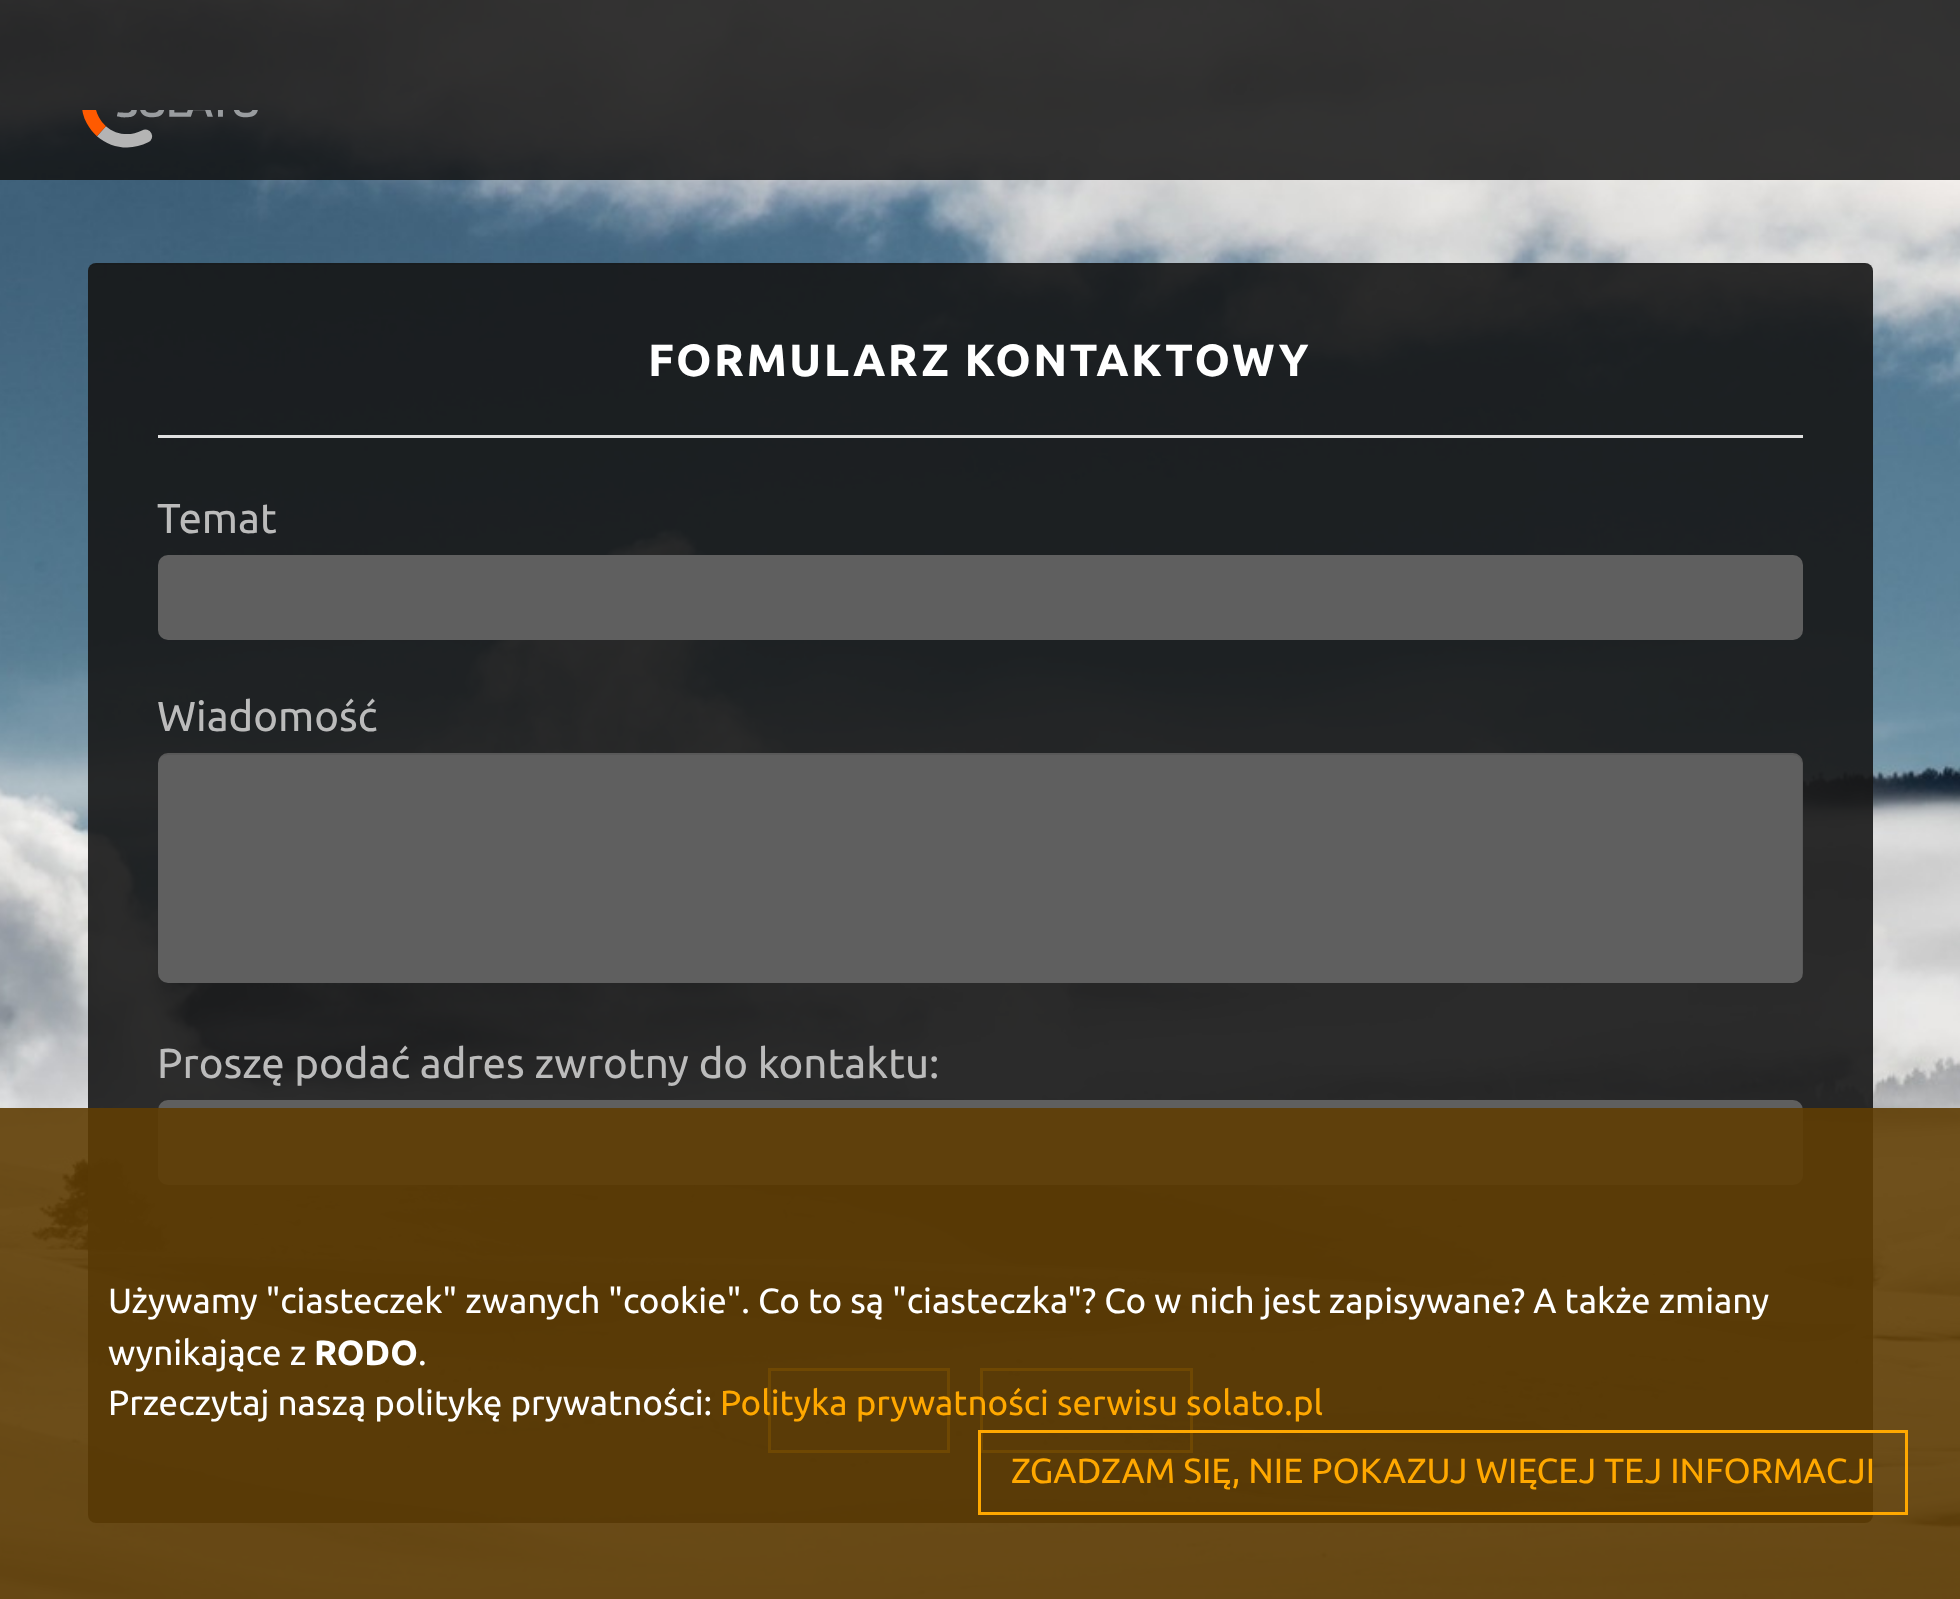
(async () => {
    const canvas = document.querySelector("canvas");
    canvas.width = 1960;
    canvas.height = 1599;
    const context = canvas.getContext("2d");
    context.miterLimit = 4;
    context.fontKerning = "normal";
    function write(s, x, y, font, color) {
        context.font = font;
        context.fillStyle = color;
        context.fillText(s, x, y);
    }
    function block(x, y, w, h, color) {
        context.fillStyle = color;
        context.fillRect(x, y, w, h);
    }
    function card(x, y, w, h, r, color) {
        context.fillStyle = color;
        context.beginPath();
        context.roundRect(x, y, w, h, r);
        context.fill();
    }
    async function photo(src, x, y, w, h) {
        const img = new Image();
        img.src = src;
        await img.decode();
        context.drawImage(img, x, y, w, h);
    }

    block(0, 0, 1960, 1599, "rgb(255, 255, 255)");
    await photo("media/2.png", 0, 0, 1960, 1599);
    block(0, 0, 1960, 180, "rgba(20, 20, 20, 0.86)");
    await photo("media/1.png", 82, 110, 176, 38);
    card(88, 263, 1785, 1260, 8, "rgba(22, 22, 22, 0.9)");
    context.fillStyle = "rgba(0, 0, 0, 0.05)";
    context.beginPath();
    context.moveTo(95, 265);
    context.lineTo(1865, 265);
    context.bezierCurveTo(1869, 265, 1872, 268, 1872, 272);
    context.lineTo(1872, 1519);
    context.bezierCurveTo(1873, 1518, 1873, 1516, 1873, 1515);
    context.lineTo(1873, 271);
    context.bezierCurveTo(1873, 267, 1869, 263, 1865, 263);
    context.lineTo(96, 263);
    context.bezierCurveTo(92, 263, 88, 267, 88, 271);
    context.lineTo(88, 272);
    context.bezierCurveTo(88, 268, 91, 265, 95, 265);
    context.closePath();
    context.fill();
    context.letterSpacing = "2.5px";
    write("FORMULARZ KONTAKTOWY", 648, 376, "bold 45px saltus", "rgb(255, 255, 255)");
    block(158, 435, 1645, 3, "rgb(224, 224, 224)");
    context.letterSpacing = "0px";
    write("Temat", 157, 533, "42px saltus", "rgb(187, 187, 187)");
    card(158, 555, 1645, 85, 10, "rgb(95, 95, 95)");
    write("Wiadomość", 157, 731, "42px saltus", "rgb(187, 187, 187)");
    card(158, 753, 1645, 230, 10, "rgb(95, 95, 95)");
    context.fillStyle = "rgba(0, 0, 0, 0.07)";
    context.beginPath();
    context.moveTo(168, 755);
    context.lineTo(1792, 755);
    context.bezierCurveTo(1798, 755, 1802, 759, 1802, 765);
    context.lineTo(1802, 975);
    context.lineTo(1802, 978);
    context.bezierCurveTo(1802, 977, 1803, 975, 1803, 973);
    context.lineTo(1803, 763);
    context.bezierCurveTo(1803, 757, 1799, 753, 1793, 753);
    context.lineTo(168, 753);
    context.bezierCurveTo(162, 753, 158, 757, 158, 763);
    context.lineTo(158, 765);
    context.bezierCurveTo(158, 759, 162, 755, 168, 755);
    context.closePath();
    context.fill();
    write("Proszę podać adres zwrotny do kontaktu:", 157, 1078, "42px saltus", "rgb(187, 187, 187)");
    card(158, 1100, 1645, 85, 10, "rgb(95, 95, 95)");
    context.strokeStyle = "rgb(255, 168, 0)";
    context.lineWidth = 3;
    context.strokeRect(769.5, 1369.5, 179, 82);
    context.strokeRect(981.5, 1369.5, 210, 82);
    block(0, 1108, 1960, 491, "rgba(95, 61, 3, 0.9)");
    write("Używamy \"ciasteczek\" zwanych \"cookie\". Co to są \"ciasteczka\"? Co w nich jest zapisywane? A także zmiany", 108, 1313, "35px saltus", "rgb(255, 255, 255)");
    write("wynikające z", 108, 1365, "35px saltus", "rgb(255, 255, 255)");
    write("RODO", 314, 1365, "bold 35px saltus", "rgb(255, 255, 255)");
    write(".", 418, 1365, "35px saltus", "rgb(255, 255, 255)");
    write("Przeczytaj naszą politykę prywatności:", 108, 1415, "35px saltus", "rgb(255, 255, 255)");
    write("Polityka prywatności serwisu solato.pl", 720, 1415, "35px saltus", "rgb(255, 168, 0)");
    context.strokeRect(979.5, 1431.5, 927, 82);
    write("ZGADZAM SIĘ, NIE POKAZUJ WIĘCEJ TEJ INFORMACJI", 1011, 1483, "35px saltus", "rgb(255, 168, 0)");
})();
